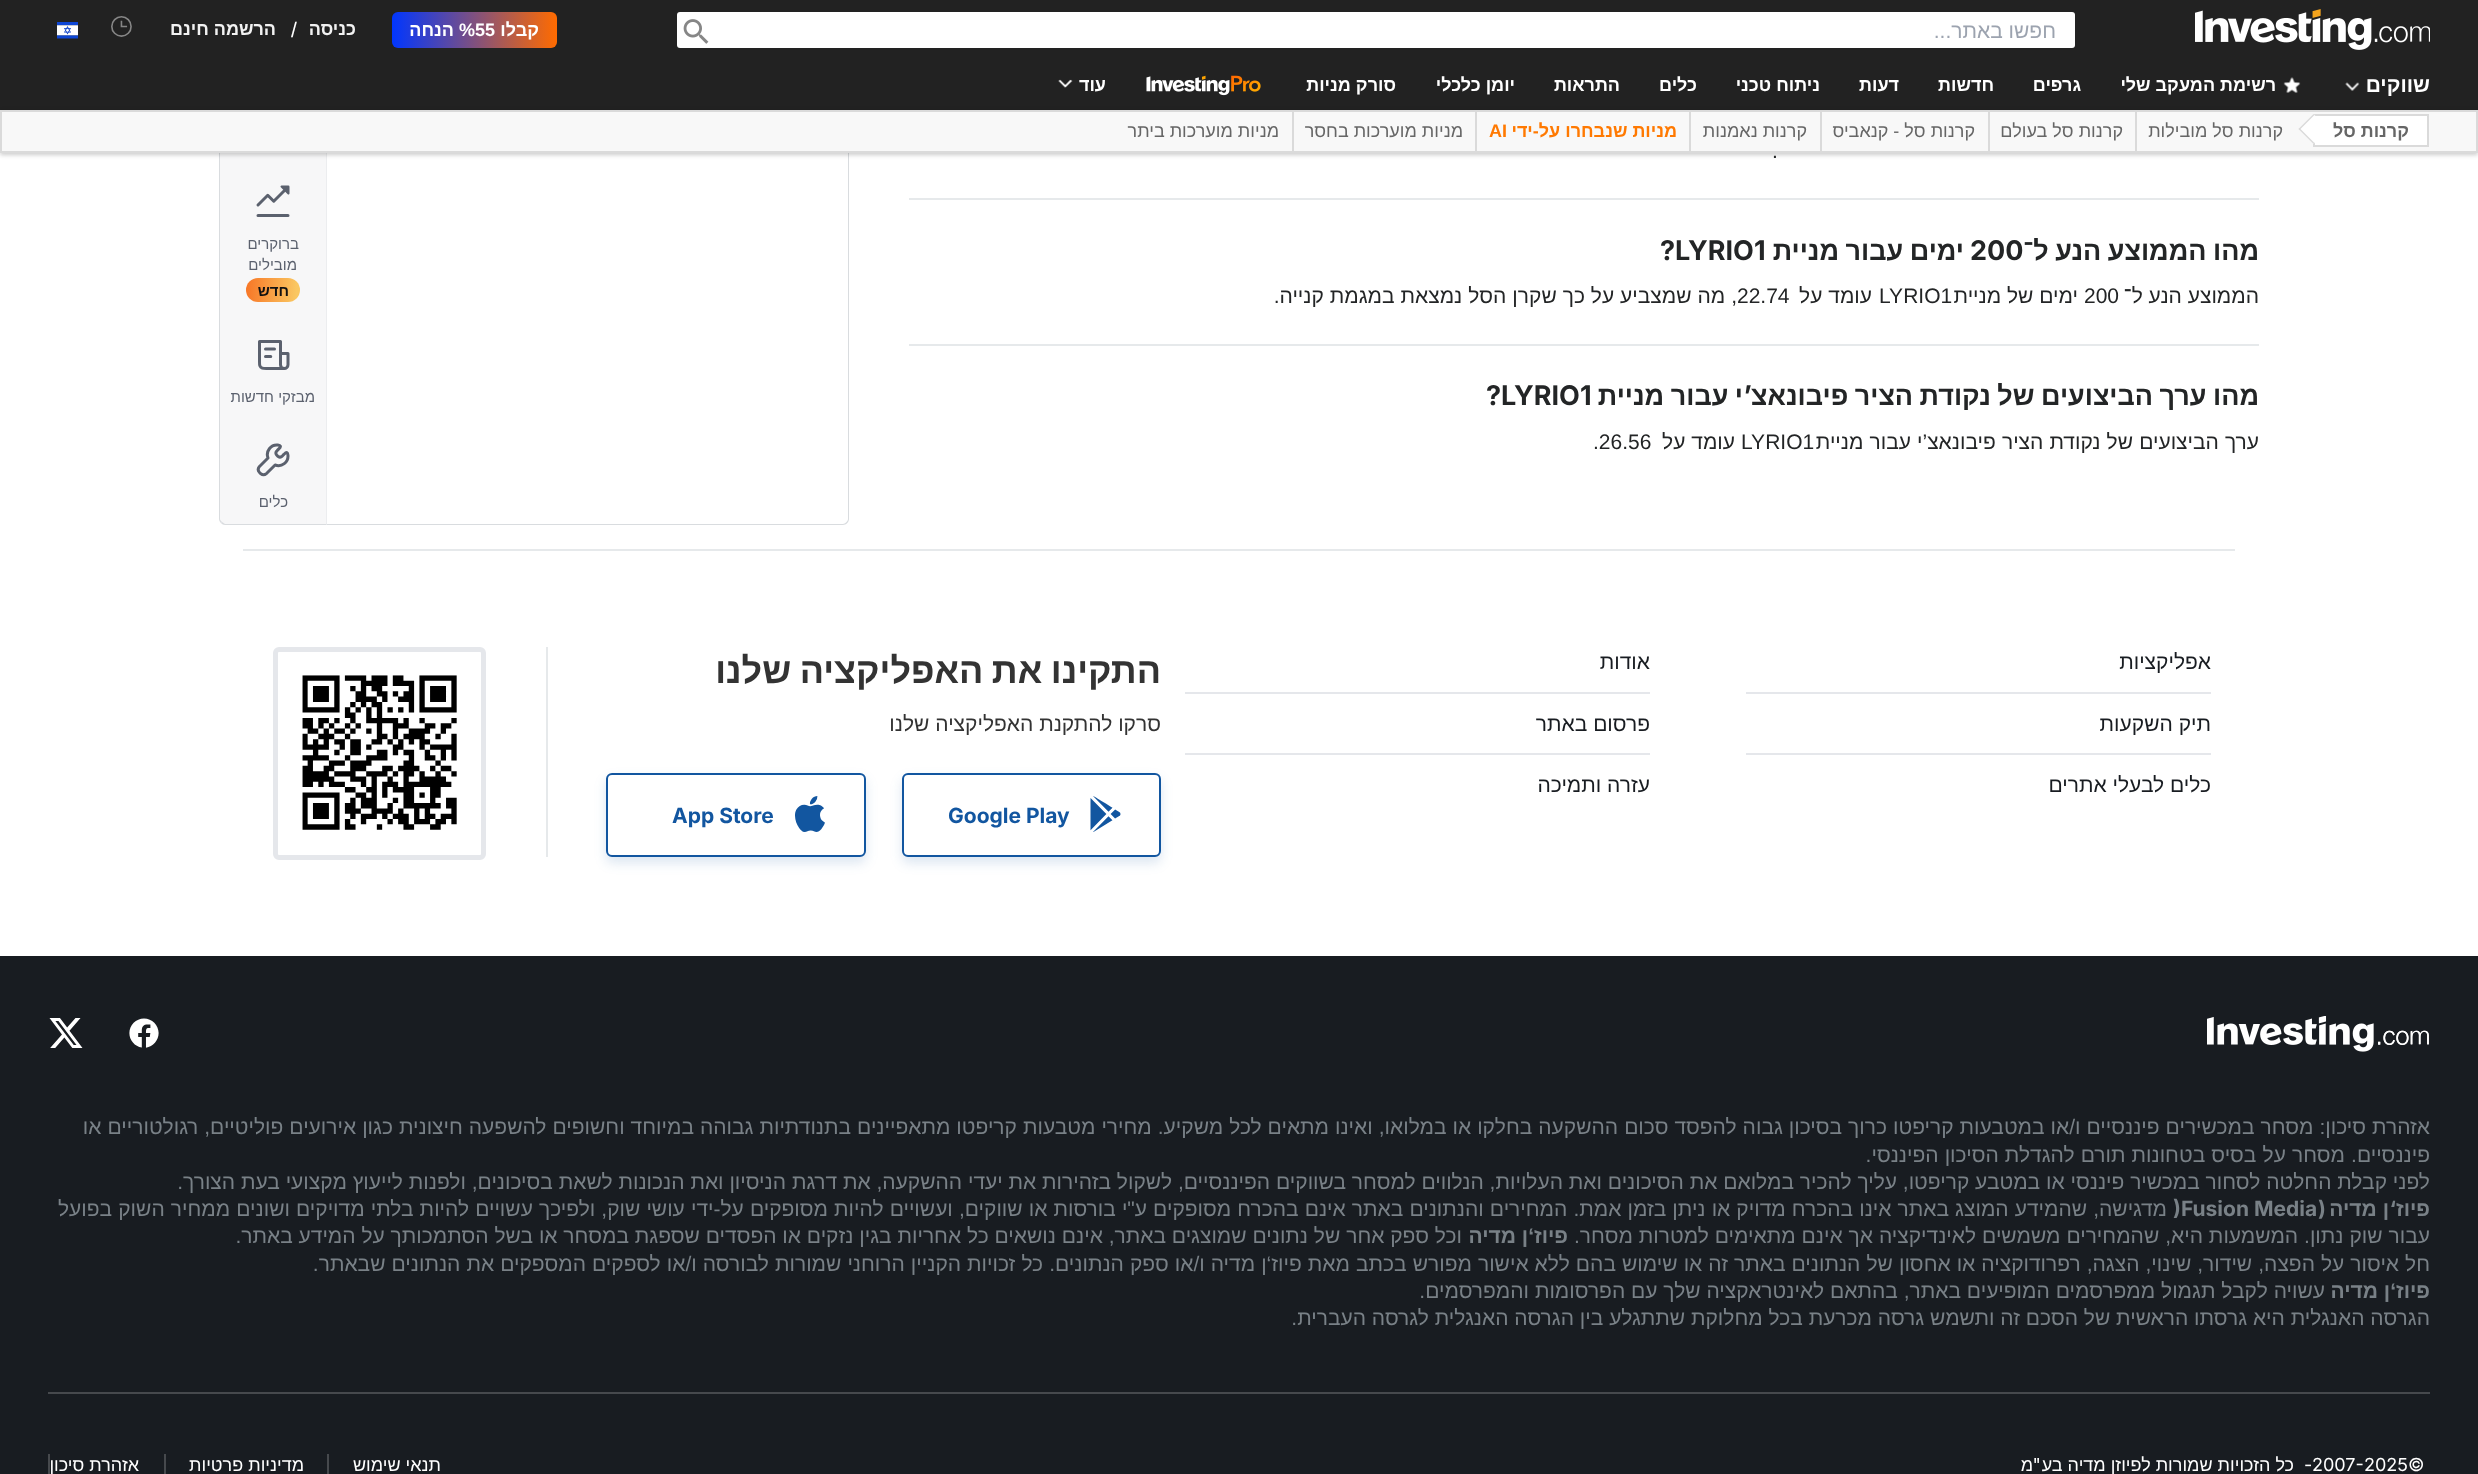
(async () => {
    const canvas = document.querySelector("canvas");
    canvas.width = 2478;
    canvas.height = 1474;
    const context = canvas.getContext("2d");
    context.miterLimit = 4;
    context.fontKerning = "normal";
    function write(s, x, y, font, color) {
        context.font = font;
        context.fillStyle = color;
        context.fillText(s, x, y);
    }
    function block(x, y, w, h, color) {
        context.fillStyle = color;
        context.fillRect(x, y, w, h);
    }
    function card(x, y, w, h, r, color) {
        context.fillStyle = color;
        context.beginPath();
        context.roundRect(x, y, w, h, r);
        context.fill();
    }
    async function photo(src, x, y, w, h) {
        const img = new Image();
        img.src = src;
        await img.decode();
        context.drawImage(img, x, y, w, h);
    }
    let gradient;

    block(0, 0, 2478, 1474, "rgb(255, 255, 255)");
    context.fillStyle = "rgb(217, 220, 223)";
    context.beginPath();
    context.moveTo(327, -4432);
    context.lineTo(843, -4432);
    context.bezierCurveTo(846, -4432, 849, -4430, 849, -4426);
    context.lineTo(849, 519);
    context.bezierCurveTo(849, 522, 846, 525, 843, 525);
    context.lineTo(327, 525);
    context.closePath();
    context.moveTo(327, -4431);
    context.lineTo(843, -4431);
    context.bezierCurveTo(845, -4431, 848, -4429, 848, -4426);
    context.lineTo(848, 519);
    context.bezierCurveTo(848, 521, 845, 524, 843, 524);
    context.lineTo(327, 524);
    context.closePath();
    context.fill("evenodd");
    context.fillStyle = "rgb(247, 247, 248)";
    context.beginPath();
    context.moveTo(225, -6);
    context.lineTo(327, -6);
    context.lineTo(327, 525);
    context.lineTo(225, 525);
    context.bezierCurveTo(221.5, 525, 219, 522.5, 219, 519);
    context.lineTo(219, 0);
    context.bezierCurveTo(219, -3.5, 221.5, -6, 225, -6);
    context.closePath();
    context.fill();
    context.fillStyle = "rgb(236, 237, 239)";
    context.beginPath();
    context.moveTo(327, 525);
    context.lineTo(327, -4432);
    context.lineTo(326, -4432);
    context.lineTo(326, -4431);
    context.lineTo(326, 524);
    context.closePath();
    context.fill();
    context.fillStyle = "rgb(217, 220, 223)";
    context.beginPath();
    context.moveTo(327, 525);
    context.lineTo(326, 524);
    context.lineTo(225, 524);
    context.lineTo(222, 522);
    context.lineTo(221, 523);
    context.bezierCurveTo(222, 524, 224, 525, 225, 525);
    context.closePath();
    context.fill();
    context.beginPath();
    context.moveTo(219, -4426);
    context.lineTo(219, 519);
    context.bezierCurveTo(219, 520, 220, 522, 221, 523);
    context.lineTo(222, 522);
    context.bezierCurveTo(221, 521, 220, 520, 220, 519);
    context.lineTo(220, -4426);
    context.bezierCurveTo(220, -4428, 221, -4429, 222, -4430);
    context.lineTo(221, -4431);
    context.bezierCurveTo(220, -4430, 219, -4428, 219, -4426);
    context.closePath();
    context.fill();
    block(0, 0, 2478, 110, "rgb(34, 34, 34)");
    await photo("media/1.png", 2195, 9, 235, 41);
    card(677, 12, 1398, 36, 3, "rgb(255, 255, 255)");
    context.direction = "rtl";
    write("חפשו באתר...", 2056, 38, "21px Liberation Sans", "rgb(156, 163, 175)");
    await photo("media/2.png", 683, 19, 26, 25);
    gradient = context.createLinearGradient(557, 30, 392, 30);
    gradient.addColorStop(0, "rgb(255, 107, 0)");
    gradient.addColorStop(1, "rgb(1, 54, 254)");
    context.fillStyle = gradient;
    context.beginPath();
    context.roundRect(392, 12, 165, 36, 6);
    context.fill();
    write("קבלו", 539, 36, "bold 18px Liberation Sans", "rgb(255, 255, 255)");
    context.direction = "ltr";
    write("%55", 459, 36, "bold 18px Liberation Sans", "rgb(255, 255, 255)");
    context.direction = "rtl";
    write("הנחה", 454, 36, "bold 18px Liberation Sans", "rgb(255, 255, 255)");
    write("כניסה", 356, 35, "bold 18px Liberation Sans", "rgb(242, 242, 242)");
    context.direction = "ltr";
    write("/", 291, 37, "21px Liberation Sans", "rgb(255, 255, 255)");
    context.direction = "rtl";
    write("הרשמה חינם", 276, 35, "bold 18px Liberation Sans", "rgb(242, 242, 242)");
    await photo("media/3.png", 111, 16, 21, 21);
    await photo("media/4.png", 57, 22, 21, 17);
    write("שווקים", 2430, 92, "bold 21px Liberation Sans", "rgb(255, 255, 255)");
    await photo("media/5.png", 2345, 82, 15, 9);
    await photo("media/6.png", 2283, 77, 18, 16);
    write("רשימת המעקב שלי", 2276, 91, "bold 18px Liberation Sans", "rgb(255, 255, 255)");
    write("גרפים", 2081, 91, "bold 18px Liberation Sans", "rgb(255, 255, 255)");
    write("חדשות", 1994, 91, "bold 18px Liberation Sans", "rgb(255, 255, 255)");
    write("דעות", 1899, 91, "bold 18px Liberation Sans", "rgb(255, 255, 255)");
    write("ניתוח טכני", 1820, 91, "bold 18px Liberation Sans", "rgb(255, 255, 255)");
    write("כלים", 1697, 91, "bold 18px Liberation Sans", "rgb(255, 255, 255)");
    write("התראות", 1620, 91, "bold 18px Liberation Sans", "rgb(255, 255, 255)");
    write("יומן כלכלי", 1515, 91, "bold 18px Liberation Sans", "rgb(255, 255, 255)");
    write("סורק מניות", 1396, 91, "bold 18px Liberation Sans", "rgb(255, 255, 255)");
    await photo("media/7.png", 1146, 75, 115, 21);
    write("עוד", 1106, 91, "bold 18px Liberation Sans", "rgb(255, 255, 255)");
    await photo("media/8.png", 1058, 79, 15, 9);
    context.fillStyle = "rgba(0, 0, 0, 0.2)";
    context.filter = "blur(2px)";
    context.beginPath();
    context.rect(0, 111, 2478, 44);
    context.fill();
    context.filter = "none";
    context.fillStyle = "rgb(248, 248, 248)";
    context.beginPath();
    context.rect(1, 111, 2476, 41);
    context.fill();
    context.strokeStyle = "rgb(218, 218, 218)";
    context.lineWidth = 2;
    context.stroke();
    context.fillStyle = "rgb(255, 255, 255)";
    context.beginPath();
    context.rect(2314, 115, 114, 31);
    context.fill();
    context.stroke();
    write("קרנות סל", 2409, 137, "bold 18px Liberation Sans", "rgb(102, 102, 102)");
    context.fillStyle = "rgb(255, 255, 255)";
    context.beginPath();
    context.moveTo(2298.5, 129);
    context.lineTo(2313.5, 114);
    context.lineTo(2328, 129);
    context.lineTo(2313.5, 144);
    context.closePath();
    context.fill();
    context.fillStyle = "rgb(218, 218, 218)";
    context.beginPath();
    context.moveTo(2298.5, 129);
    context.lineTo(2313.5, 114);
    context.lineTo(2314.5, 115);
    context.lineTo(2299.5, 130);
    context.closePath();
    context.fill();
    context.beginPath();
    context.moveTo(2298.5, 129);
    context.lineTo(2299.5, 128);
    context.lineTo(2314.5, 143);
    context.lineTo(2313.5, 144);
    context.closePath();
    context.fill();
    block(2135, 111, 2, 41, "rgb(218, 218, 218)");
    write("קרנות סל מובילות", 2283, 137, "18px Liberation Sans", "rgb(102, 102, 102)");
    block(1988, 111, 2, 41, "rgb(218, 218, 218)");
    write("קרנות סל בעולם", 2123, 137, "18px Liberation Sans", "rgb(102, 102, 102)");
    block(1820, 111, 2, 41, "rgb(218, 218, 218)");
    write("קרנות סל - קנאביס", 1975, 137, "18px Liberation Sans", "rgb(102, 102, 102)");
    block(1689, 111, 2, 41, "rgb(218, 218, 218)");
    write("קרנות נאמנות", 1807, 137, "18px Liberation Sans", "rgb(102, 102, 102)");
    block(1475, 111, 2, 41, "rgb(218, 218, 218)");
    write("מניות שנבחרו על-ידי", 1677, 137, "bold 18px Liberation Sans", "rgb(255, 121, 1)");
    context.direction = "ltr";
    write("AI", 1489, 137, "bold 18px Liberation Sans", "rgb(255, 121, 1)");
    block(1292, 111, 2, 41, "rgb(218, 218, 218)");
    context.direction = "rtl";
    write("מניות מוערכות בחסר", 1463, 137, "18px Liberation Sans", "rgb(102, 102, 102)");
    write("מניות מוערכות ביתר", 1279, 137, "18px Liberation Sans", "rgb(102, 102, 102)");
    context.direction = "ltr";
    write(".", 1772, 158, "21px Liberation Sans", "rgb(35, 37, 38)");
    block(909, 198, 1350, 2, "rgb(230, 233, 235)");
    context.wordSpacing = "-1px";
    context.direction = "rtl";
    write("מהו הממוצע הנע ל־", 2259, 260, "bold 27px Liberation Sans", "rgb(35, 37, 38)");
    context.wordSpacing = "0px";
    context.direction = "ltr";
    write("200", 1970, 260, "bold 27px Inter", "rgb(35, 37, 38)");
    context.wordSpacing = "-1px";
    context.direction = "rtl";
    write("ימים עבור מניית", 1964, 260, "bold 27px Liberation Sans", "rgb(35, 37, 38)");
    context.wordSpacing = "0px";
    context.direction = "ltr";
    write("?LYRIO1", 1660, 260, "bold 27px Inter", "rgb(35, 37, 38)");
    context.direction = "rtl";
    write("הממוצע הנע ל־", 2259, 303, "21px Liberation Sans", "rgb(35, 37, 38)");
    context.direction = "ltr";
    write("200", 2084, 303, "21px Liberation Sans", "rgb(35, 37, 38)");
    context.direction = "rtl";
    write("ימים של מניית", 2078, 303, "21px Liberation Sans", "rgb(35, 37, 38)");
    context.direction = "ltr";
    write("LYRIO1", 1879, 303, "21px Liberation Sans", "rgb(35, 37, 38)");
    context.direction = "rtl";
    write("עומד על", 1872, 303, "21px Liberation Sans", "rgb(35, 37, 38)");
    context.direction = "ltr";
    write("22.74", 1737, 303, "21px Liberation Sans", "rgb(35, 37, 38)");
    context.wordSpacing = "0.1px";
    context.direction = "rtl";
    write(", מה שמצביע על כך שקרן הסל נמצאת במגמת קנייה.", 1737, 303, "21px Liberation Sans", "rgb(35, 37, 38)");
    block(909, 344, 1350, 2, "rgb(230, 233, 235)");
    context.wordSpacing = "-1px";
    write("מהו ערך הביצועים של נקודת הציר פיבונאצ", 2259, 405, "bold 27px Liberation Sans", "rgb(35, 37, 38)");
    context.wordSpacing = "0px";
    write("’", 1752, 405, "bold 27px Inter", "rgb(35, 37, 38)");
    context.wordSpacing = "-1px";
    write("י עבור מניית", 1743, 405, "bold 27px Liberation Sans", "rgb(35, 37, 38)");
    context.wordSpacing = "0px";
    context.direction = "ltr";
    write("?LYRIO1", 1486, 405, "bold 27px Inter", "rgb(35, 37, 38)");
    context.wordSpacing = "0.25px";
    context.direction = "rtl";
    write("ערך הביצועים של נקודת הציר פיבונאצ’י עבור מניית", 2259, 449, "21px Liberation Sans", "rgb(35, 37, 38)");
    context.wordSpacing = "0px";
    context.direction = "ltr";
    write("LYRIO1", 1741, 449, "21px Liberation Sans", "rgb(35, 37, 38)");
    context.direction = "rtl";
    write("עומד על", 1735, 449, "21px Liberation Sans", "rgb(35, 37, 38)");
    context.direction = "ltr";
    write(".26.56", 1593, 449, "21px Liberation Sans", "rgb(35, 37, 38)");
    await photo("media/9.png", 256, 185, 34, 32);
    context.direction = "rtl";
    write("ברוקרים", 299, 249, "15px Liberation Sans", "rgb(91, 97, 110)");
    write("מובילים", 297, 270, "15px Liberation Sans", "rgb(91, 97, 110)");
    gradient = context.createLinearGradient(301, 291, 237, 287);
    gradient.addColorStop(0.07, "rgb(250, 199, 97)");
    gradient.addColorStop(1, "rgb(247, 104, 28)");
    context.fillStyle = gradient;
    context.beginPath();
    context.roundRect(246, 278, 54, 24, 12);
    context.fill();
    write("חדש", 289, 296, "bold 15px Liberation Sans", "rgb(17, 17, 17)");
    await photo("media/10.png", 258, 340, 32, 30);
    write("מבזקי חדשות", 315, 402, "15px Liberation Sans", "rgb(91, 97, 110)");
    await photo("media/11.png", 256, 443, 34, 34);
    write("כלים", 288, 507, "15px Liberation Sans", "rgb(91, 97, 110)");
    block(243, 549, 1992, 2, "rgb(230, 233, 235)");
    block(1746, 692, 465, 2, "rgb(229, 231, 235)");
    write("אפליקציות", 2211, 669, "21px Liberation Sans", "rgb(24, 28, 33)");
    block(1746, 753, 465, 2, "rgb(229, 231, 235)");
    write("תיק השקעות", 2211, 731, "21px Liberation Sans", "rgb(24, 28, 33)");
    write("כלים לבעלי אתרים", 2211, 792, "21px Liberation Sans", "rgb(24, 28, 33)");
    block(1185, 692, 465, 2, "rgb(229, 231, 235)");
    write("אודות", 1650, 669, "21px Liberation Sans", "rgb(24, 28, 33)");
    block(1185, 753, 465, 2, "rgb(229, 231, 235)");
    write("פרסום באתר", 1650, 731, "21px Liberation Sans", "rgb(24, 28, 33)");
    write("עזרה ותמיכה", 1650, 792, "21px Liberation Sans", "rgb(24, 28, 33)");
    block(546, 647, 2, 210, "rgb(230, 233, 235)");
    context.wordSpacing = "-1.5px";
    write("התקינו את האפליקציה שלנו", 1161, 683, "bold 36px Liberation Sans", "rgb(51, 51, 51)");
    context.wordSpacing = "0px";
    write("סרקו להתקנת האפליקציה שלנו", 1161, 731, "21px Liberation Sans", "rgb(51, 51, 51)");
    context.fillStyle = "rgba(18, 86, 160, 0.15)";
    context.filter = "blur(6px)";
    context.beginPath();
    context.roundRect(902, 779, 259, 84, 6);
    context.fill();
    context.filter = "none";
    context.fillStyle = "rgb(255, 255, 255)";
    context.beginPath();
    context.roundRect(903, 774, 257, 82, 5);
    context.fill();
    context.strokeStyle = "rgb(18, 86, 160)";
    context.stroke();
    await photo("media/12.png", 1090, 796, 31, 36);
    context.direction = "ltr";
    write("Google Play", 948, 823, "bold 21px Inter", "rgb(18, 86, 160)");
    context.fillStyle = "rgba(18, 86, 160, 0.15)";
    context.filter = "blur(6px)";
    context.beginPath();
    context.roundRect(606, 779, 260, 84, 6);
    context.fill();
    context.filter = "none";
    context.fillStyle = "rgb(255, 255, 255)";
    context.beginPath();
    context.roundRect(607, 774, 258, 82, 5);
    context.fill();
    context.stroke();
    await photo("media/13.png", 795, 796, 30, 36);
    write("App Store", 672, 823, "bold 21px Inter", "rgb(18, 86, 160)");
    context.beginPath();
    context.roundRect(275.5, 649.5, 208, 208, 3.5);
    context.strokeStyle = "rgb(229, 231, 235)";
    context.lineWidth = 5;
    context.stroke();
    await photo("media/14.png", 302, 675, 155, 155);
    block(0, 956, 2478, 518, "rgb(24, 28, 33)");
    await photo("media/15.png", 2207, 1016, 222, 36);
    await photo("media/16.png", 129, 1018, 30, 30);
    await photo("media/17.png", 49, 1018, 34, 30);
    block(48, 1392, 2382, 2, "rgb(70, 73, 77)");
    context.wordSpacing = "0.15px";
    context.direction = "rtl";
    write("אזהרת סיכון: מסחר במכשירים פיננסיים ו/או במטבעות קריפטו כרוך בסיכון גבוה להפסד סכום ההשקעה בחלקו או במלואו, ואינו מתאים לכל משקיע. מחירי מטבעות קריפטו מתאפיינים בתנודתיות גבוהה במיוחד וחשופים להשפעה חיצונית כגון אירועים פוליטיים, רגולטוריים או", 2430, 1134, "21px Liberation Sans", "rgb(121, 129, 135)");
    context.wordSpacing = "0.25px";
    write("פיננסיים. מסחר על בסיס בטחונות תורם להגדלת הסיכון הפיננסי.", 2430, 1162, "21px Liberation Sans", "rgb(121, 129, 135)");
    context.wordSpacing = "0px";
    write("לפני קבלת החלטה לסחור במכשיר פיננסי או במטבע קריפטו, עליך להכיר במלואם את הסיכונים ואת העלויות, הנלווים למסחר בשווקים הפיננסיים, לשקול בזהירות את יעדי ההשקעה, את דרגת הניסיון ואת הנכונות לשאת בסיכונים, ולפנות לייעוץ מקצועי בעת הצורך.", 2430, 1189, "21px Liberation Sans", "rgb(121, 129, 135)");
    write("פיוז", 2430, 1216, "bold 21px Liberation Sans", "rgb(121, 129, 135)");
    write("‘", 2396, 1216, "bold 21px Inter", "rgb(121, 129, 135)");
    write("ן מדיה", 2389, 1216, "bold 21px Liberation Sans", "rgb(121, 129, 135)");
    write("(", 2326, 1216, "bold 21px Inter", "rgb(121, 129, 135)");
    context.direction = "ltr";
    write(")Fusion Media", 2173, 1216, "bold 21px Inter", "rgb(121, 129, 135)");
    context.wordSpacing = "0.25px";
    context.direction = "rtl";
    write("מדגישה, שהמידע המוצג באתר אינו בהכרח מדויק או ניתן בזמן אמת. המחירים והנתונים באתר אינם בהכרח מסופקים ע\"י בורסות או שווקים, ועשויים להיות מסופקים על-ידי עושי שוק, ולפיכך עשויים להיות בלתי מדויקים ושונים ממחיר השוק בפועל", 2167, 1216, "21px Liberation Sans", "rgb(121, 129, 135)");
    context.wordSpacing = "0.1px";
    write("עבור שוק נתון. המשמעות היא, שהמחירים משמשים לאינדיקציה אך אינם מתאימים למטרות מסחר.", 2430, 1243, "21px Liberation Sans", "rgb(121, 129, 135)");
    context.wordSpacing = "0px";
    write("פיוז‘ן מדיה", 1568, 1243, "bold 21px Liberation Sans", "rgb(121, 129, 135)");
    write("וכל ספק אחר של נתונים שמוצגים באתר, אינם נושאים כל אחריות בגין נזקים או הפסדים שספגת במסחר או בשל הסתמכותך על המידע באתר.", 1462, 1243, "21px Liberation Sans", "rgb(121, 129, 135)");
    context.wordSpacing = "0.2px";
    write("חל איסור על הפצה, שידור, שינוי, הצגה, רפרודוקציה או אחסון של הנתונים באתר זה או שימוש בהם ללא אישור מפורש בכתב מאת פיוז‘ן מדיה ו/או ספק הנתונים. כל זכויות הקניין הרוחני שמורות לבורסה ו/או לספקים המספקים את הנתונים שבאתר.", 2430, 1271, "21px Liberation Sans", "rgb(121, 129, 135)");
    context.wordSpacing = "0px";
    write("פיוז‘ן מדיה", 2430, 1298, "bold 21px Liberation Sans", "rgb(121, 129, 135)");
    write("עשויה לקבל תגמול ממפרסמים המופיעים באתר, בהתאם לאינטראקציה שלך עם הפרסומות והמפרסמים.", 2325, 1298, "21px Liberation Sans", "rgb(121, 129, 135)");
    write("הגרסה האנגלית היא גרסתו הראשית של הסכם זה ותשמש גרסה מכרעת בכל מחלוקת שתתגלע בין הגרסה האנגלית לגרסה העברית.", 2430, 1325, "21px Liberation Sans", "rgb(121, 129, 135)");
    context.direction = "ltr";
    write("©", 2408, 1471, "18px Inter", "rgb(255, 255, 255)");
    write("2025", 2364, 1471, "18px Inter", "rgb(255, 255, 255)");
    write("2007-", 2312, 1471, "18px Inter", "rgb(255, 255, 255)");
    write("-", 2304, 1471, "18px Inter", "rgb(255, 255, 255)");
    context.direction = "rtl";
    write("כל הזכויות שמורות לפיוזן מדיה בע", 2294, 1471, "18px Liberation Sans", "rgb(255, 255, 255)");
    write("\"", 2041, 1471, "18px Inter", "rgb(255, 255, 255)");
    write("מ", 2033, 1471, "18px Liberation Sans", "rgb(255, 255, 255)");
    block(327, 1454, 2, 20, "rgb(70, 73, 77)");
    write("תנאי שימוש", 441, 1471, "18px Liberation Sans", "rgb(255, 255, 255)");
    block(164, 1454, 2, 20, "rgb(70, 73, 77)");
    write("מדיניות פרטיות", 304, 1471, "18px Liberation Sans", "rgb(255, 255, 255)");
    block(48, 1454, 2, 20, "rgb(70, 73, 77)");
    write("אזהרת סיכון", 139, 1471, "18px Liberation Sans", "rgb(255, 255, 255)");
})();
